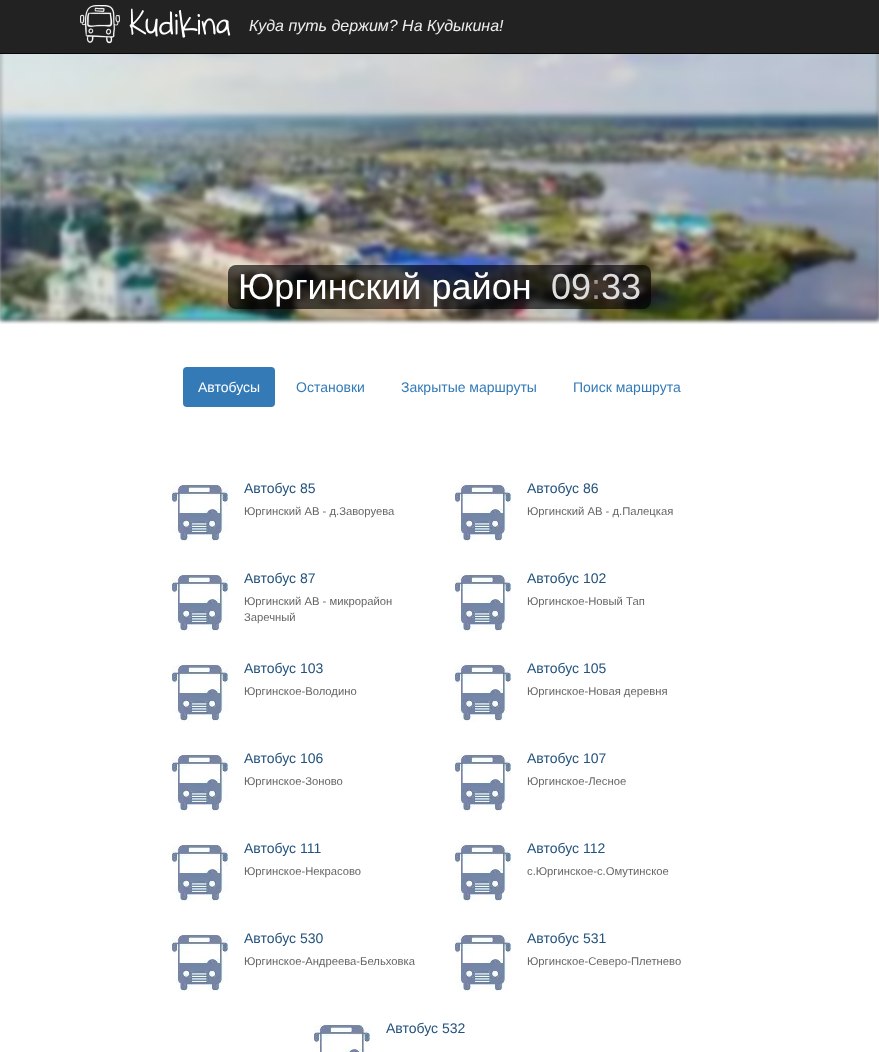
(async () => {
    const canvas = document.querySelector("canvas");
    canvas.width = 879;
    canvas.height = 1052;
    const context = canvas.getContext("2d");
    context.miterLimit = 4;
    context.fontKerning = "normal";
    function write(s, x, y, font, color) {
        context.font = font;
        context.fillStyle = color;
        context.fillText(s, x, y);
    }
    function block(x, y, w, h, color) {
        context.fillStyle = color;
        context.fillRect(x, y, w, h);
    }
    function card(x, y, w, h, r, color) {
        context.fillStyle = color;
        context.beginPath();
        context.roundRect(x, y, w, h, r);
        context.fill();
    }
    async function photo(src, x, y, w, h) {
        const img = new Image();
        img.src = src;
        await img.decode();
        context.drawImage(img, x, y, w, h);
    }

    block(0, 0, 879, 1052, "rgb(255, 255, 255)");
    context.fillStyle = "rgb(56, 56, 56)";
    context.filter = "blur(2px)";
    context.beginPath();
    context.rect(0, 50, 879, 270);
    context.fill();
    context.filter = "none";
    block(0, 0, 879, 53, "rgb(34, 34, 34)");
    block(0, 53, 879, 1, "rgb(8, 8, 8)");
    await photo("media/1.png", 80, 5, 151, 39);
    write("Куда путь держим? На Кудыкина!", 249, 31, "italic 16px Liberation Sans", "rgb(238, 238, 238)");
    await photo("media/2.png", 0, 54, 879, 270);
    card(228, 265, 423, 44, 8, "rgba(0, 0, 0, 0.65)");
    write("Юргинский район", 238, 299, "36px Liberation Sans", "rgb(255, 255, 255)");
    write("09 33", 551, 299, "36px Liberation Sans", "rgb(221, 221, 221)");
    write(":", 591, 299, "36px Liberation Sans", "rgb(153, 153, 153)");
    card(183, 367, 92, 40, 4, "rgb(51, 122, 183)");
    write("Автобусы", 198, 392, "14px Liberation Sans", "rgb(255, 255, 255)");
    write("Остановки", 296, 392, "14px Liberation Sans", "rgb(51, 122, 183)");
    write("Закрытые маршруты", 401, 392, "14px Liberation Sans", "rgb(51, 122, 183)");
    write("Поиск маршрута", 573, 392, "14px Liberation Sans", "rgb(51, 122, 183)");
    await photo("media/3.png", 172, 484, 57, 58);
    write("Автобус 85", 244, 493, "14px Liberation Sans", "rgb(35, 82, 124)");
    write("Юргинский АВ - д.Заворуева", 244, 515, "11.25px Liberation Sans", "rgb(102, 102, 102)");
    await photo("media/3.png", 455, 484, 57, 58);
    write("Автобус 86", 527, 493, "14px Liberation Sans", "rgb(35, 82, 124)");
    write("Юргинский АВ - д.Палецкая", 527, 515, "11.25px Liberation Sans", "rgb(102, 102, 102)");
    await photo("media/3.png", 172, 574, 57, 58);
    write("Автобус 87", 244, 583, "14px Liberation Sans", "rgb(35, 82, 124)");
    write("Юргинский АВ - микрорайон", 244, 605, "11.25px Liberation Sans", "rgb(102, 102, 102)");
    write("Заречный", 244, 621, "11.25px Liberation Sans", "rgb(102, 102, 102)");
    await photo("media/3.png", 455, 574, 57, 58);
    write("Автобус 102", 527, 583, "14px Liberation Sans", "rgb(35, 82, 124)");
    write("Юргинское-Новый Тап", 527, 605, "11.25px Liberation Sans", "rgb(102, 102, 102)");
    await photo("media/3.png", 172, 664, 57, 58);
    write("Автобус 103", 244, 673, "14px Liberation Sans", "rgb(35, 82, 124)");
    write("Юргинское-Володино", 244, 695, "11.25px Liberation Sans", "rgb(102, 102, 102)");
    await photo("media/3.png", 455, 664, 57, 58);
    write("Автобус 105", 527, 673, "14px Liberation Sans", "rgb(35, 82, 124)");
    write("Юргинское-Новая деревня", 527, 695, "11.25px Liberation Sans", "rgb(102, 102, 102)");
    await photo("media/3.png", 172, 754, 57, 58);
    write("Автобус 106", 244, 763, "14px Liberation Sans", "rgb(35, 82, 124)");
    write("Юргинское-Зоново", 244, 785, "11.25px Liberation Sans", "rgb(102, 102, 102)");
    await photo("media/3.png", 455, 754, 57, 58);
    write("Автобус 107", 527, 763, "14px Liberation Sans", "rgb(35, 82, 124)");
    write("Юргинское-Лесное", 527, 785, "11.25px Liberation Sans", "rgb(102, 102, 102)");
    await photo("media/3.png", 172, 844, 57, 58);
    write("Автобус 111", 244, 853, "14px Liberation Sans", "rgb(35, 82, 124)");
    write("Юргинское-Некрасово", 244, 875, "11.25px Liberation Sans", "rgb(102, 102, 102)");
    await photo("media/3.png", 455, 844, 57, 58);
    write("Автобус 112", 527, 853, "14px Liberation Sans", "rgb(35, 82, 124)");
    write("с.Юргинское-с.Омутинское", 527, 875, "11.25px Liberation Sans", "rgb(102, 102, 102)");
    await photo("media/3.png", 172, 934, 57, 58);
    write("Автобус 530", 244, 943, "14px Liberation Sans", "rgb(35, 82, 124)");
    write("Юргинское-Андреева-Бельховка", 244, 965, "11.25px Liberation Sans", "rgb(102, 102, 102)");
    await photo("media/3.png", 455, 934, 57, 58);
    write("Автобус 531", 527, 943, "14px Liberation Sans", "rgb(35, 82, 124)");
    write("Юргинское-Северо-Плетнево", 527, 965, "11.25px Liberation Sans", "rgb(102, 102, 102)");
    await photo("media/4.png", 314, 1024, 57, 28);
    write("Автобус 532", 386, 1033, "14px Liberation Sans", "rgb(35, 82, 124)");
})();
